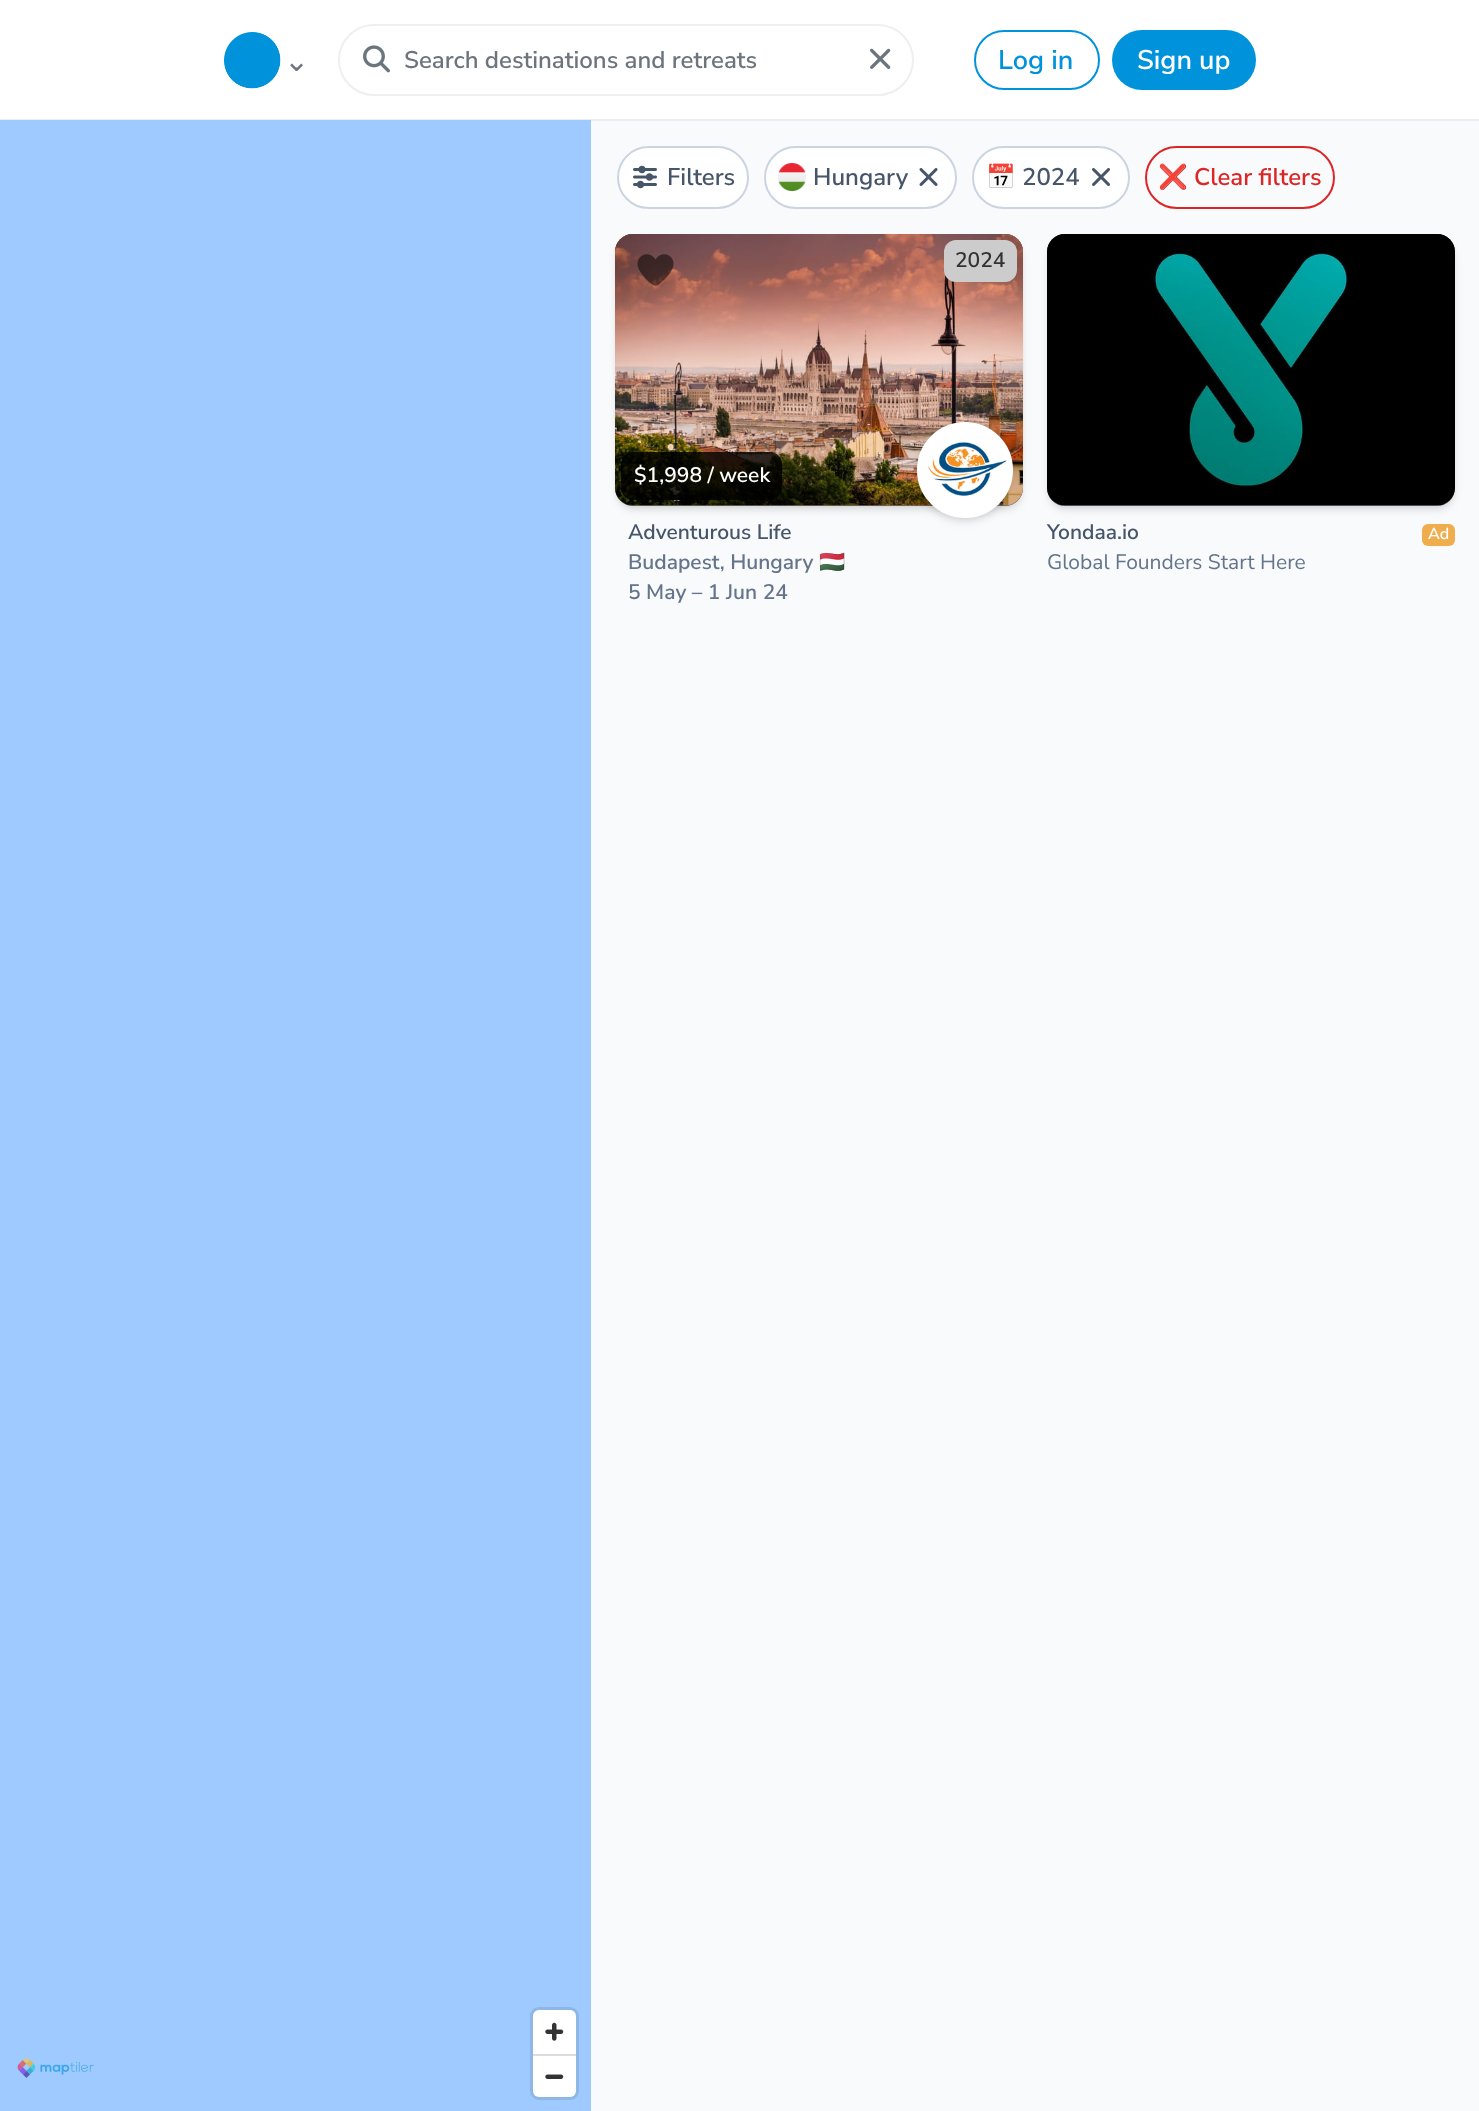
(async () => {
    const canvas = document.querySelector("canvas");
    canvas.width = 1479;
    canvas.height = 2111;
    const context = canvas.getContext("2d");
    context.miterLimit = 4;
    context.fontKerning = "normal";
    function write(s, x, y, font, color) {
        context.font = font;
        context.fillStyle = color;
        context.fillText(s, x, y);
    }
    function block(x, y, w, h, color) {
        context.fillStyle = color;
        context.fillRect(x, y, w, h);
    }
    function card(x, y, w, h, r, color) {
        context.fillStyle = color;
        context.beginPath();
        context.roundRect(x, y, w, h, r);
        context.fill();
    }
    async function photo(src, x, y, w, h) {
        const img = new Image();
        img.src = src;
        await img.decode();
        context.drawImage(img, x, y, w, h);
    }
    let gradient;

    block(0, 0, 1479, 2111, "rgb(248, 250, 252)");
    block(0, 0, 1479, 119, "rgb(255, 255, 255)");
    block(0, 119, 1479, 2, "rgb(237, 237, 237)");
    await photo("media/1.png", 224, 32, 57, 57);
    context.letterSpacing = "13px";
    write("⌄", 284, 71, "30px DejaVu Sans", "rgb(108, 117, 125)");
    context.beginPath();
    context.roundRect(339, 25, 574, 70, 35);
    context.strokeStyle = "rgb(239, 239, 239)";
    context.lineWidth = 2;
    context.stroke();
    await photo("media/2.png", 363, 45, 27, 28);
    context.letterSpacing = "0px";
    write("Search destinations and retreats", 404, 68, "600 24px Nunito Sans", "rgb(108, 117, 125)");
    await photo("media/3.png", 870, 48, 21, 21);
    context.beginPath();
    context.roundRect(975, 31, 124, 58, 29);
    context.strokeStyle = "rgb(0, 146, 218)";
    context.stroke();
    write("Log in", 998, 69, "600 27px Nunito Sans", "rgb(0, 146, 218)");
    card(1112, 30, 144, 60, 30, "rgb(0, 146, 218)");
    write("Sign up", 1137, 69, "600 27px Nunito Sans", "rgb(255, 255, 255)");
    block(0, 120, 591, 1991, "rgb(158, 202, 255)");
    await photo("media/4.png", 17, 2058, 78, 20);
    context.beginPath();
    context.roundRect(531.5, 2008.5, 46, 90, 7.5);
    context.strokeStyle = "rgb(142, 182, 230)";
    context.lineWidth = 3;
    context.stroke();
    card(533, 2010, 43, 87, 6, "rgb(255, 255, 255)");
    await photo("media/5.png", 545, 2022, 19, 19);
    block(533, 2054, 43, 2, "rgb(221, 221, 221)");
    await photo("media/6.png", 545, 2074, 19, 5);
    context.fillStyle = "rgb(255, 255, 255)";
    context.beginPath();
    context.roundRect(618, 147, 130, 61, 30.5);
    context.fill();
    context.strokeStyle = "rgb(203, 213, 225)";
    context.lineWidth = 2;
    context.stroke();
    await photo("media/7.png", 633, 165, 24, 24);
    write("Filters", 667, 185, "600 24px Nunito Sans", "rgb(71, 85, 105)");
    context.fillStyle = "rgb(255, 255, 255)";
    context.beginPath();
    context.roundRect(765, 147, 191, 61, 30.5);
    context.fill();
    context.stroke();
    await photo("media/8.png", 778, 163, 28, 29);
    write("Hungary", 813, 185, "600 24px Nunito Sans", "rgb(71, 85, 105)");
    await photo("media/9.png", 919, 168, 19, 18);
    context.fillStyle = "rgb(255, 255, 255)";
    context.beginPath();
    context.roundRect(973, 147, 156, 61, 30.5);
    context.fill();
    context.stroke();
    write("📅", 986, 185, "24px Noto Color Emoji", "rgb(71, 85, 105)");
    write("2024", 1022, 185, "600 24px Nunito Sans", "rgb(71, 85, 105)");
    await photo("media/10.png", 1092, 168, 18, 18);
    context.beginPath();
    context.roundRect(1146, 147, 188, 61, 30.5);
    context.strokeStyle = "rgb(220, 38, 38)";
    context.stroke();
    write("❌", 1158, 185, "24px Noto Color Emoji", "rgb(220, 38, 38)");
    write("Clear filters", 1194, 185, "600 24px Nunito Sans", "rgb(220, 38, 38)");
    context.fillStyle = "rgba(0, 0, 0, 0.1)";
    context.filter = "blur(3px)";
    context.beginPath();
    context.roundRect(618, 240, 402, 266, 15);
    context.fill();
    context.filter = "none";
    context.filter = "blur(4.5px)";
    context.beginPath();
    context.roundRect(617, 242, 405, 268, 17);
    context.fill();
    context.filter = "none";
    gradient = context.createLinearGradient(819, 234, 819, 506);
    gradient.addColorStop(0, "rgb(35, 33, 33)");
    gradient.addColorStop(1, "rgb(111, 107, 107)");
    context.fillStyle = gradient;
    context.beginPath();
    context.roundRect(615, 234, 408, 272, 18);
    context.fill();
    await photo("media/11.png", 615, 234, 408, 272);
    await photo("media/12.png", 615, 234, 408, 272);
    card(944, 240, 73, 42, 12, "rgb(204, 204, 204)");
    write("2024", 955, 267, "600 21px Nunito Sans", "rgb(51, 51, 51)");
    card(621, 452, 161, 48, 12, "rgba(0, 0, 0, 0.8)");
    write("$1,998 / week", 634, 482, "600 21px Nunito Sans", "rgb(255, 255, 255)");
    await photo("media/13.png", 637, 254, 37, 32);
    context.fillStyle = "rgba(0, 0, 0, 0.1)";
    context.filter = "blur(3px)";
    context.beginPath();
    context.roundRect(920, 428, 90, 90, 45);
    context.fill();
    context.filter = "none";
    context.filter = "blur(4.5px)";
    context.beginPath();
    context.roundRect(918, 429, 93, 93, 46.5);
    context.fill();
    context.filter = "none";
    context.fillStyle = "rgb(255, 255, 255)";
    context.beginPath();
    context.arc(965, 470, 46.5, 0, Math.PI * 2);
    context.fill();
    context.strokeStyle = "rgb(255, 255, 255)";
    context.lineWidth = 3;
    context.stroke();
    await photo("media/14.png", 921, 441, 86, 56);
    write("Adventurous Life", 628, 539, "600 21px Nunito Sans", "rgb(71, 85, 105)");
    write("Budapest, Hungary", 628, 569, "600 21px Nunito Sans", "rgb(100, 116, 139)");
    write("🇭🇺", 819, 569, "21px Noto Color Emoji", "rgb(100, 116, 139)");
    write("5 May – 1 Jun 24", 628, 599, "600 21px Nunito Sans", "rgb(100, 116, 139)");
    context.fillStyle = "rgba(0, 0, 0, 0.1)";
    context.filter = "blur(3px)";
    context.beginPath();
    context.roundRect(1050, 240, 402, 266, 15);
    context.fill();
    context.filter = "none";
    context.filter = "blur(4.5px)";
    context.beginPath();
    context.roundRect(1049, 242, 405, 268, 17);
    context.fill();
    context.filter = "none";
    gradient = context.createLinearGradient(1251, 234, 1251, 506);
    gradient.addColorStop(0, "rgb(35, 33, 33)");
    gradient.addColorStop(1, "rgb(111, 107, 107)");
    context.fillStyle = gradient;
    context.beginPath();
    context.roundRect(1047, 234, 408, 272, 18);
    context.fill();
    await photo("media/15.png", 1047, 234, 408, 272);
    write("Yondaa.io", 1047, 539, "600 21px Nunito Sans", "rgb(71, 85, 105)");
    card(1422, 524, 33, 22, 6, "rgb(240, 173, 78)");
    write("Ad", 1428, 539, "600 16px Nunito Sans", "rgb(255, 255, 255)");
    write("Global Founders Start Here", 1047, 569, "21px Nunito Sans", "rgb(100, 116, 139)");
})();
